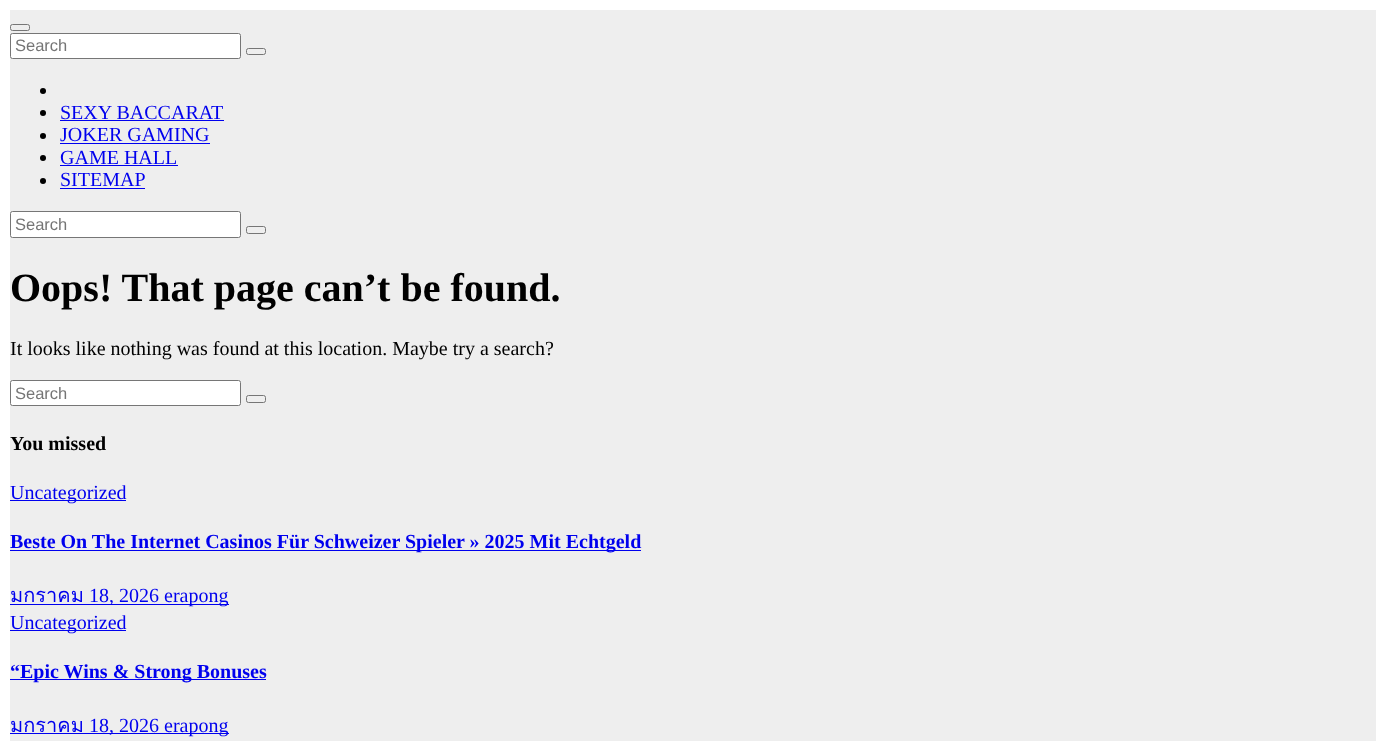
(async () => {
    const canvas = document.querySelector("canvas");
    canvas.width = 1386;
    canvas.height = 741;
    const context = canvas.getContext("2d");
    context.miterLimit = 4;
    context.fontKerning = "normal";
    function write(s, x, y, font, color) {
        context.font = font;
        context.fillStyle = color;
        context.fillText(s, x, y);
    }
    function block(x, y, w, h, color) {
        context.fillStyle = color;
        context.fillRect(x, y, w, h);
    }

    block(0, 0, 1386, 741, "rgb(255, 255, 255)");
    block(10, 10, 1366, 731, "rgb(238, 238, 238)");
    context.beginPath();
    context.roundRect(10.5, 24.5, 19, 6, 2);
    context.strokeStyle = "rgb(118, 118, 118)";
    context.stroke();
    context.fillStyle = "rgb(255, 255, 255)";
    context.beginPath();
    context.roundRect(10.5, 33.5, 230, 25, 2);
    context.fill();
    context.stroke();
    write("Search", 15, 51, "16.5px Liberation Sans", "rgb(117, 117, 117)");
    context.beginPath();
    context.roundRect(246.5, 48.5, 19, 6, 2);
    context.stroke();
    context.fillStyle = "rgb(0, 0, 0)";
    context.beginPath();
    context.arc(43, 91, 3, 0, Math.PI * 2);
    context.fill();
    context.beginPath();
    context.arc(43, 113, 3, 0, Math.PI * 2);
    context.fill();
    write("SEXY BACCARAT", 60, 119, "20px Liberation Serif", "rgb(0, 0, 238)");
    block(60, 120, 164, 1, "rgb(0, 0, 238)");
    context.fillStyle = "rgb(0, 0, 0)";
    context.beginPath();
    context.arc(43, 136, 3, 0, Math.PI * 2);
    context.fill();
    write("JOKER GAMING", 60, 141, "20px Liberation Serif", "rgb(0, 0, 238)");
    block(60, 143, 150, 1, "rgb(0, 0, 238)");
    context.fillStyle = "rgb(0, 0, 0)";
    context.beginPath();
    context.arc(43, 158, 3, 0, Math.PI * 2);
    context.fill();
    write("GAME HALL", 60, 164, "20px Liberation Serif", "rgb(0, 0, 238)");
    block(60, 165, 118, 1, "rgb(0, 0, 238)");
    context.fillStyle = "rgb(0, 0, 0)";
    context.beginPath();
    context.arc(43, 181, 3, 0, Math.PI * 2);
    context.fill();
    write("SITEMAP", 60, 186, "20px Liberation Serif", "rgb(0, 0, 238)");
    block(60, 188, 85, 1, "rgb(0, 0, 238)");
    context.fillStyle = "rgb(255, 255, 255)";
    context.beginPath();
    context.roundRect(10.5, 211.5, 230, 26, 2);
    context.fill();
    context.stroke();
    write("Search", 15, 230, "16.5px Liberation Sans", "rgb(117, 117, 117)");
    context.beginPath();
    context.roundRect(246.5, 226.5, 19, 7, 2);
    context.stroke();
    write("Oops! That page can’t be found.", 10, 301, "bold 40px Liberation Serif", "rgb(0, 0, 0)");
    write("It looks like nothing was found at this location. Maybe try a search?", 10, 355, "20px Liberation Serif", "rgb(0, 0, 0)");
    context.fillStyle = "rgb(255, 255, 255)";
    context.beginPath();
    context.roundRect(10.5, 380.5, 230, 25, 2);
    context.fill();
    context.stroke();
    write("Search", 15, 399, "16.5px Liberation Sans", "rgb(117, 117, 117)");
    context.beginPath();
    context.roundRect(246.5, 395.5, 19, 7, 2);
    context.stroke();
    write("You missed", 10, 450, "bold 20px Liberation Serif", "rgb(0, 0, 0)");
    block(10, 500, 116, 1, "rgb(0, 0, 238)");
    write("Uncategorized", 10, 499, "20px Liberation Serif", "rgb(0, 0, 238)");
    block(10, 550, 631, 1, "rgb(0, 0, 238)");
    write("Beste On The Internet Casinos Für Schweizer Spieler » 2025 Mit Echtgeld", 10, 548, "bold 20px Liberation Serif", "rgb(0, 0, 238)");
    write("มกราคม", 10, 602, "20px Loma", "rgb(0, 0, 238)");
    block(10, 604, 219, 1, "rgb(0, 0, 238)");
    write("18, 2026 erapong", 89, 602, "20px Liberation Serif", "rgb(0, 0, 238)");
    block(10, 630, 116, 1, "rgb(0, 0, 238)");
    write("Uncategorized", 10, 629, "20px Liberation Serif", "rgb(0, 0, 238)");
    block(10, 679, 256, 1, "rgb(0, 0, 238)");
    write("“Epic Wins & Strong Bonuses", 10, 678, "bold 20px Liberation Serif", "rgb(0, 0, 238)");
    write("มกราคม", 10, 732, "20px Loma", "rgb(0, 0, 238)");
    block(10, 733, 219, 1, "rgb(0, 0, 238)");
    write("18, 2026 erapong", 89, 732, "20px Liberation Serif", "rgb(0, 0, 238)");
})();
